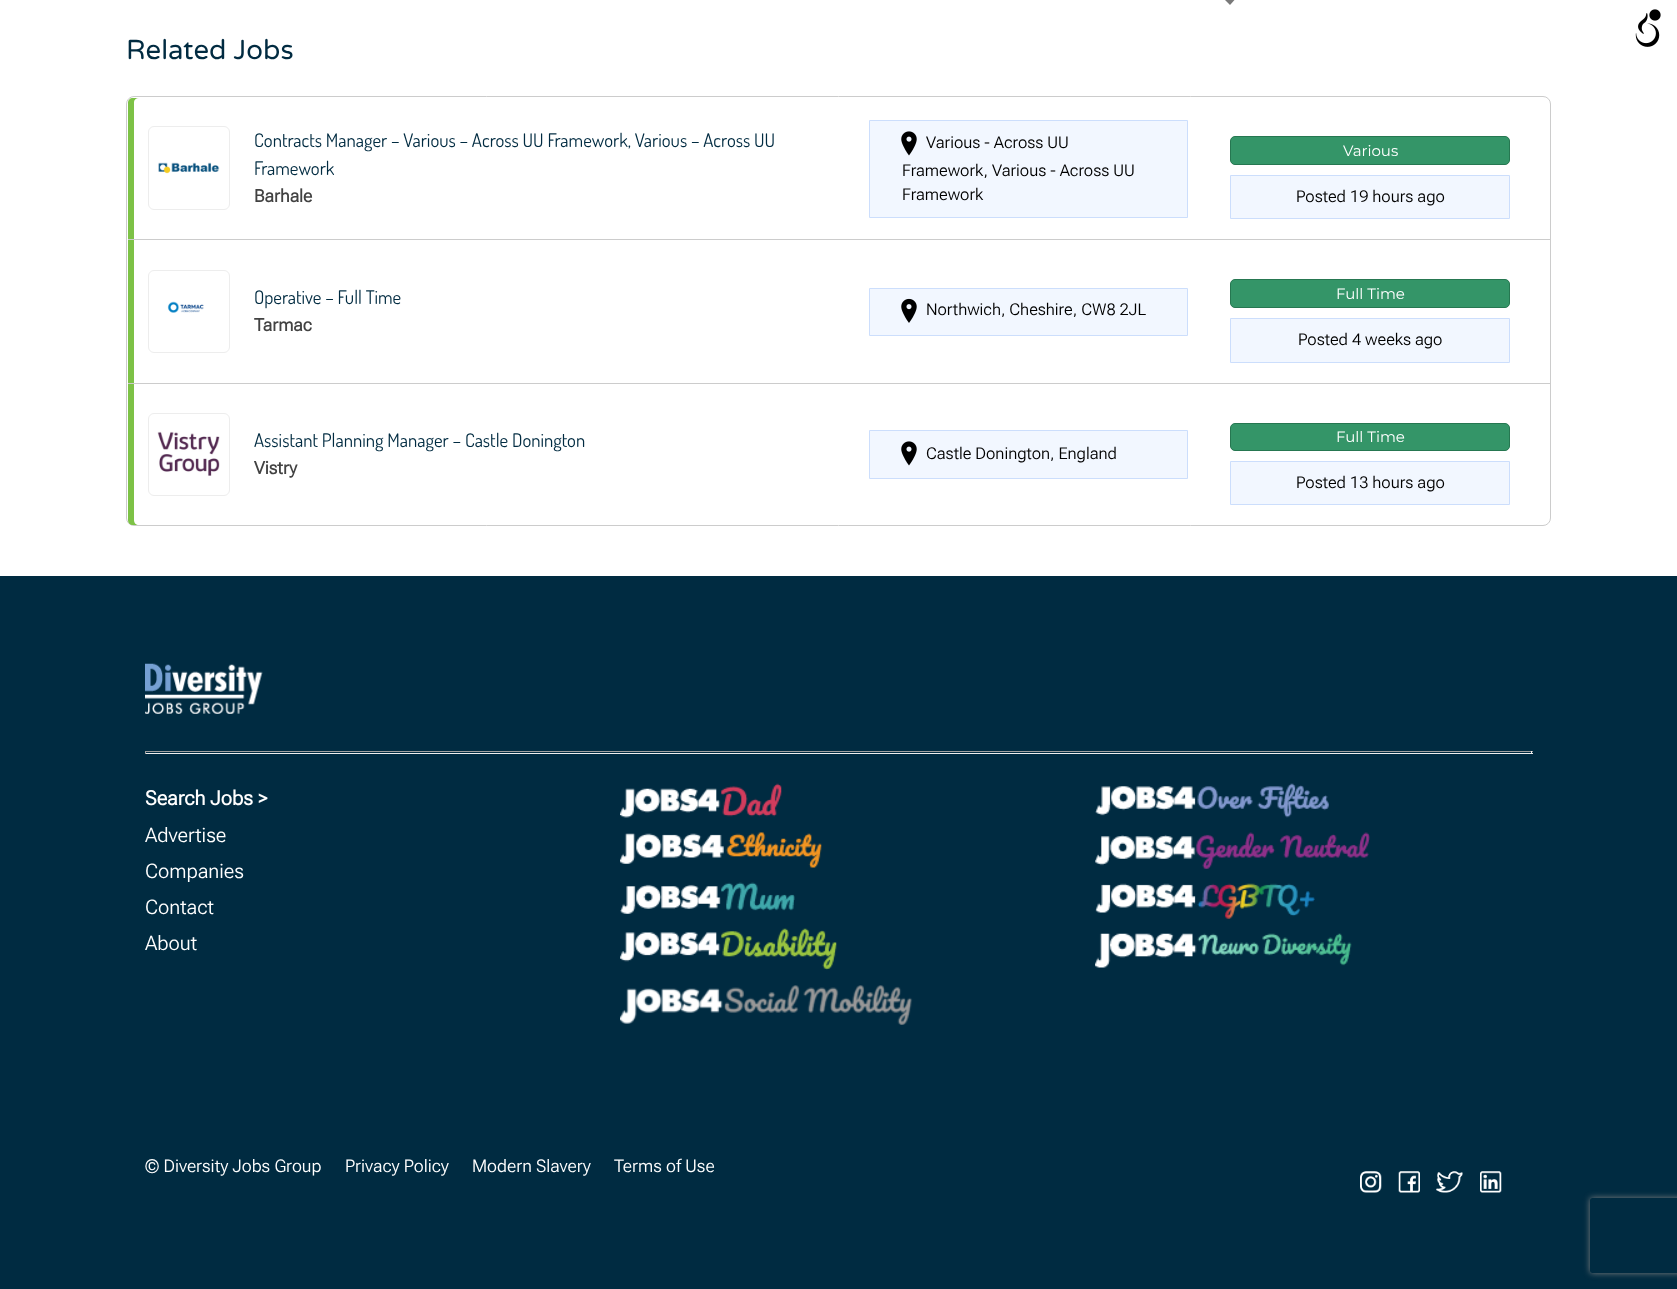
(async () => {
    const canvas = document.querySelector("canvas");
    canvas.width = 1677;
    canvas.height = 1289;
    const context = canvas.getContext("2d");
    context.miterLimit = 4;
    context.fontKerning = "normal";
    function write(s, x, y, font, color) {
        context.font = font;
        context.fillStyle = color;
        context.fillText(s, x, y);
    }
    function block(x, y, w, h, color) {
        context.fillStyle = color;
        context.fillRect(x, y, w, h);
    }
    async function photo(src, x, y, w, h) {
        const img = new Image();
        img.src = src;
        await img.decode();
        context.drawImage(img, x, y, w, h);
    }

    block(0, 0, 1677, 1289, "rgb(255, 255, 255)");
    await photo("media/1.png", 1635, 9, 26, 38);
    await photo("media/2.png", 1225, 0, 10, 5);
    write("Related Jobs", 126, 59, "27.5px Varela Round", "rgb(1, 43, 65)");
    context.beginPath();
    context.roundRect(126.5, 96.5, 1424, 429, 7.5);
    context.strokeStyle = "rgb(204, 204, 204)";
    context.stroke();
    context.fillStyle = "rgb(125, 194, 70)";
    context.beginPath();
    context.moveTo(133, 98);
    context.bezierCurveTo(130, 98, 128, 100, 128, 103);
    context.lineTo(128, 239);
    context.lineTo(134, 239);
    context.lineTo(134, 102);
    context.bezierCurveTo(134, 100, 136, 98, 139, 98);
    context.closePath();
    context.fill();
    block(128, 239, 1422, 1, "rgb(204, 204, 204)");
    context.beginPath();
    context.roundRect(148.5, 126.5, 81, 83, 5.5);
    context.strokeStyle = "rgb(237, 237, 237)";
    context.stroke();
    await photo("media/3.png", 158, 162, 62, 12);
    write("Contracts Manager – Various – Across UU Framework, Various – Across UU", 254, 147, "18.75px Dosis", "rgb(1, 43, 65)");
    write("Framework", 254, 175, "18.75px Dosis", "rgb(1, 43, 65)");
    write("Barhale", 254, 202, "bold 17.5px Roboto Flex", "rgb(66, 66, 66)");
    context.fillStyle = "rgb(242, 247, 255)";
    context.beginPath();
    context.rect(869.5, 120.5, 318, 97);
    context.fill();
    context.strokeStyle = "rgb(204, 222, 252)";
    context.stroke();
    await photo("media/4.png", 901, 131, 16, 25);
    write("Various - Across UU", 926, 148, "300 16.25px Roboto Flex", "rgb(0, 0, 0)");
    write("Framework, Various - Across UU", 902, 176, "300 16.25px Roboto Flex", "rgb(0, 0, 0)");
    write("Framework", 902, 200, "300 16.25px Roboto Flex", "rgb(0, 0, 0)");
    context.fillStyle = "rgb(52, 149, 104)";
    context.beginPath();
    context.roundRect(1230.5, 136.5, 279, 28, 4.5);
    context.fill();
    context.strokeStyle = "rgb(38, 119, 81)";
    context.stroke();
    write("Various", 1343, 156, "15px Montserrat", "rgb(255, 255, 255)");
    context.fillStyle = "rgb(242, 247, 255)";
    context.beginPath();
    context.rect(1230.5, 175.5, 279, 43);
    context.fill();
    context.strokeStyle = "rgb(204, 222, 252)";
    context.stroke();
    write("Posted 19 hours ago", 1296, 202, "300 16.25px Roboto Flex", "rgb(0, 0, 0)");
    block(128, 240, 6, 143, "rgb(125, 194, 70)");
    block(128, 383, 1422, 1, "rgb(204, 204, 204)");
    context.beginPath();
    context.roundRect(148.5, 270.5, 81, 82, 5.5);
    context.strokeStyle = "rgb(237, 237, 237)";
    context.stroke();
    await photo("media/5.png", 167, 301, 37, 12);
    write("Operative – Full Time", 254, 304, "18.75px Dosis", "rgb(1, 43, 65)");
    write("Tarmac", 254, 331, "bold 17.5px Roboto Flex", "rgb(66, 66, 66)");
    context.fillStyle = "rgb(242, 247, 255)";
    context.beginPath();
    context.rect(869.5, 288.5, 318, 47);
    context.fill();
    context.strokeStyle = "rgb(204, 222, 252)";
    context.stroke();
    await photo("media/6.png", 901, 298, 16, 25);
    write("Northwich, Cheshire, CW8 2JL", 926, 315, "300 16.25px Roboto Flex", "rgb(0, 0, 0)");
    context.fillStyle = "rgb(52, 149, 104)";
    context.beginPath();
    context.roundRect(1230.5, 279.5, 279, 28, 4.5);
    context.fill();
    context.strokeStyle = "rgb(38, 119, 81)";
    context.stroke();
    write("Full Time", 1336, 299, "15px Montserrat", "rgb(255, 255, 255)");
    context.fillStyle = "rgb(242, 247, 255)";
    context.beginPath();
    context.rect(1230.5, 318.5, 279, 44);
    context.fill();
    context.strokeStyle = "rgb(204, 222, 252)";
    context.stroke();
    write("Posted 4 weeks ago", 1298, 345, "300 16.25px Roboto Flex", "rgb(0, 0, 0)");
    context.fillStyle = "rgb(125, 194, 70)";
    context.beginPath();
    context.moveTo(128, 384);
    context.lineTo(128, 520);
    context.bezierCurveTo(128, 523, 130, 525, 133, 525);
    context.lineTo(139, 525);
    context.bezierCurveTo(136, 525, 134, 523, 134, 520);
    context.lineTo(134, 384);
    context.closePath();
    context.fill();
    context.beginPath();
    context.roundRect(148.5, 413.5, 81, 82, 5.5);
    context.strokeStyle = "rgb(237, 237, 237)";
    context.stroke();
    await photo("media/7.png", 157, 431, 63, 45);
    write("Assistant Planning Manager – Castle Donington", 254, 447, "18.75px Dosis", "rgb(1, 43, 65)");
    write("Vistry", 254, 474, "bold 17.5px Roboto Flex", "rgb(66, 66, 66)");
    context.fillStyle = "rgb(242, 247, 255)";
    context.beginPath();
    context.rect(869.5, 430.5, 318, 48);
    context.fill();
    context.strokeStyle = "rgb(204, 222, 252)";
    context.stroke();
    await photo("media/4.png", 901, 441, 16, 25);
    write("Castle Donington, England", 926, 459, "300 16.25px Roboto Flex", "rgb(0, 0, 0)");
    context.fillStyle = "rgb(52, 149, 104)";
    context.beginPath();
    context.roundRect(1230.5, 423.5, 279, 27, 4.5);
    context.fill();
    context.strokeStyle = "rgb(38, 119, 81)";
    context.stroke();
    write("Full Time", 1336, 442, "15px Montserrat", "rgb(255, 255, 255)");
    context.fillStyle = "rgb(242, 247, 255)";
    context.beginPath();
    context.rect(1230.5, 461.5, 279, 43);
    context.fill();
    context.strokeStyle = "rgb(204, 222, 252)";
    context.stroke();
    write("Posted 13 hours ago", 1296, 488, "300 16.25px Roboto Flex", "rgb(0, 0, 0)");
    block(0, 576, 1677, 713, "rgb(0, 43, 65)");
    await photo("media/8.png", 145, 663, 118, 51);
    block(145, 751, 1388, 1, "rgb(159, 159, 159)");
    block(1531, 751, 1, 3, "rgb(238, 238, 238)");
    block(145, 753, 1388, 1, "rgb(238, 238, 238)");
    block(145, 751, 1, 3, "rgb(159, 159, 159)");
    write("Search Jobs >", 145, 805, "bold 20px 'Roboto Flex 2'", "rgb(255, 255, 255)");
    write("Advertise", 145, 842, "300 20px 'Roboto Flex 2'", "rgb(255, 255, 255)");
    write("Companies", 145, 878, "300 20px 'Roboto Flex 2'", "rgb(255, 255, 255)");
    write("Contact", 145, 914, "300 20px 'Roboto Flex 2'", "rgb(255, 255, 255)");
    write("About", 145, 950, "300 20px 'Roboto Flex 2'", "rgb(255, 255, 255)");
    await photo("media/9.png", 620, 783, 162, 35);
    await photo("media/10.png", 620, 832, 202, 36);
    await photo("media/11.png", 620, 882, 175, 32);
    await photo("media/12.png", 620, 928, 217, 42);
    await photo("media/13.png", 620, 985, 293, 40);
    await photo("media/14.png", 1095, 783, 234, 35);
    await photo("media/15.png", 1095, 832, 275, 37);
    await photo("media/16.png", 1095, 883, 220, 36);
    await photo("media/17.png", 1095, 933, 257, 35);
    write("© Diversity Jobs Group", 145, 1172, "300 17.5px 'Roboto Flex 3'", "rgb(255, 255, 255)");
    write("Privacy Policy", 345, 1172, "300 17.5px 'Roboto Flex 3'", "rgb(255, 255, 255)");
    write("Modern Slavery", 472, 1172, "300 17.5px 'Roboto Flex 3'", "rgb(255, 255, 255)");
    write("Terms of Use", 614, 1172, "300 17.5px 'Roboto Flex 3'", "rgb(255, 255, 255)");
    await photo("media/18.png", 1360, 1171, 22, 22);
    await photo("media/19.png", 1398, 1171, 22, 22);
    await photo("media/20.png", 1436, 1171, 27, 22);
    await photo("media/21.png", 1480, 1171, 22, 22);
    context.save();
    context.beginPath();
    context.moveTo(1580, 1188);
    context.lineTo(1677, 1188);
    context.lineTo(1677, 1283);
    context.lineTo(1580, 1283);
    context.closePath();
    context.moveTo(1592.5, 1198);
    context.lineTo(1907.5, 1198);
    context.bezierCurveTo(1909, 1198, 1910, 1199, 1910, 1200.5);
    context.lineTo(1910, 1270.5);
    context.bezierCurveTo(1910, 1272, 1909, 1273, 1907.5, 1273);
    context.lineTo(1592.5, 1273);
    context.bezierCurveTo(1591, 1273, 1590, 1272, 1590, 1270.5);
    context.lineTo(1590, 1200.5);
    context.bezierCurveTo(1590, 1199, 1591, 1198, 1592.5, 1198);
    context.closePath();
    context.clip("evenodd");
    context.fillStyle = "rgb(128, 128, 128)";
    context.filter = "blur(3px)";
    context.beginPath();
    context.roundRect(1590, 1198, 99, 75, 2.5);
    context.fill();
    context.filter = "none";
    context.restore();
})();
